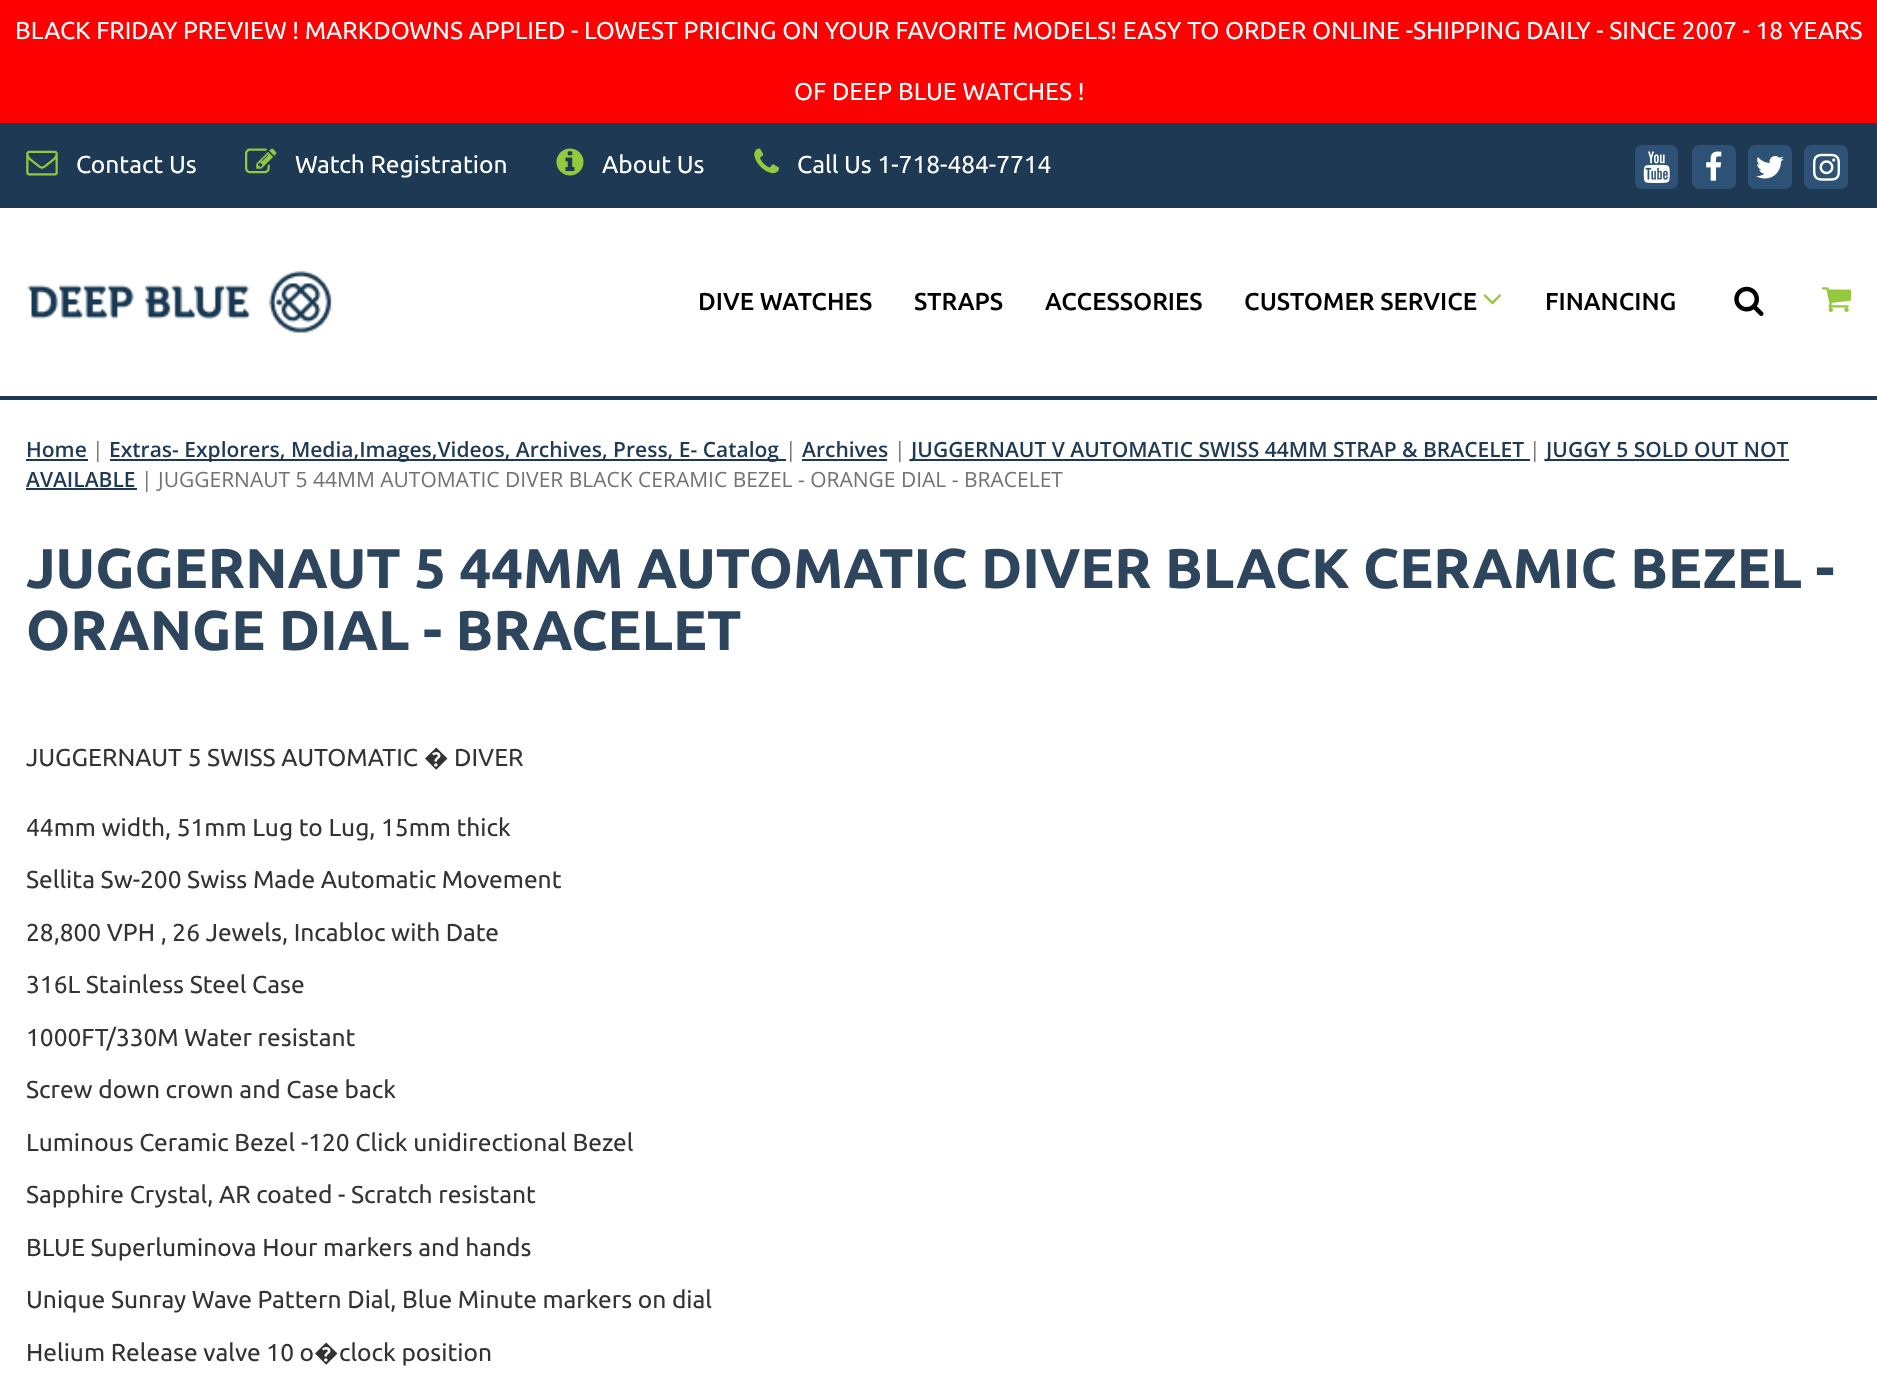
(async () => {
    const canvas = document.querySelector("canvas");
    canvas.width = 1877;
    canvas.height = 1390;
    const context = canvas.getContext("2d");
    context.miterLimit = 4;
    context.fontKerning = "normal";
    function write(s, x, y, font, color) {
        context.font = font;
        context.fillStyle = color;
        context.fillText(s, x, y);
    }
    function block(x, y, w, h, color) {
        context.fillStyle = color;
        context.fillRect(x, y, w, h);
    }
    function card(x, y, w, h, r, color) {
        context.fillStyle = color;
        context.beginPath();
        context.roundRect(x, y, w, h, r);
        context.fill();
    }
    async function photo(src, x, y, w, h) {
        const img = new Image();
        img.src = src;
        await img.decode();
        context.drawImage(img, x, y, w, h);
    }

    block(0, 0, 1877, 1390, "rgb(255, 255, 255)");
    block(0, 0, 1877, 123, "rgb(255, 0, 0)");
    write("BLACK FRIDAY PREVIEW ! MARKDOWNS APPLIED - LOWEST PRICING ON YOUR FAVORITE MODELS! EASY TO ORDER ONLINE -SHIPPING DAILY - SINCE 2007 - 18 YEARS", 15, 39, "24.5px Ubuntu", "rgb(255, 255, 255)");
    write("OF DEEP BLUE WATCHES !", 794, 100, "24.5px Ubuntu", "rgb(255, 255, 255)");
    block(0, 123, 1877, 85, "rgb(30, 57, 83)");
    await photo("media/1.png", 26, 150, 32, 26);
    write("Contact Us", 76, 173, "24.5px Ubuntu", "rgb(255, 255, 255)");
    await photo("media/2.png", 245, 148, 32, 26);
    write("Watch Registration", 295, 173, "24.5px Ubuntu", "rgb(255, 255, 255)");
    await photo("media/3.png", 556, 148, 28, 28);
    write("About Us", 602, 173, "24.5px Ubuntu", "rgb(255, 255, 255)");
    await photo("media/4.png", 754, 148, 25, 26);
    write("Call Us 1-718-484-7714", 797, 173, "24.5px Ubuntu", "rgb(255, 255, 255)");
    card(1635, 145, 43, 44, 7, "rgb(46, 82, 117)");
    await photo("media/5.png", 1643, 151, 27, 32);
    card(1692, 145, 44, 44, 7, "rgb(46, 82, 117)");
    await photo("media/6.png", 1706, 151, 16, 30);
    card(1748, 145, 44, 44, 7, "rgb(46, 82, 117)");
    await photo("media/7.png", 1756, 156, 28, 23);
    card(1804, 145, 44, 44, 7, "rgb(46, 82, 117)");
    await photo("media/8.png", 1813, 153, 27, 28);
    block(0, 396, 1877, 4, "rgb(30, 57, 83)");
    await photo("media/9.png", 27, 270, 305, 63);
    write("DIVE WATCHES", 698, 310, "500 24.5px Ubuntu", "rgb(0, 0, 0)");
    write("STRAPS", 914, 310, "500 24.5px Ubuntu", "rgb(0, 0, 0)");
    write("ACCESSORIES", 1045, 310, "500 24.5px Ubuntu", "rgb(0, 0, 0)");
    write("CUSTOMER SERVICE", 1244, 310, "500 24.5px Ubuntu", "rgb(0, 0, 0)");
    await photo("media/10.png", 1483, 294, 19, 11);
    write("FINANCING", 1545, 310, "500 24.5px Ubuntu", "rgb(0, 0, 0)");
    await photo("media/11.png", 1734, 286, 30, 30);
    await photo("media/12.png", 1821, 287, 30, 25);
    write("Home", 26, 457, "600 21px Open Sans", "rgb(30, 57, 83)");
    block(26, 459, 62, 2, "rgb(30, 57, 83)");
    write("|", 92, 457, "21px Open Sans", "rgb(117, 113, 111)");
    block(110, 459, 676, 2, "rgb(30, 57, 83)");
    write("Extras- Explorers, Media,Images,Videos, Archives, Press, E- Catalog", 109, 457, "600 21px Open Sans", "rgb(30, 57, 83)");
    write("|", 785, 457, "21px Open Sans", "rgb(117, 113, 111)");
    write("Archives", 802, 457, "600 21px Open Sans", "rgb(30, 57, 83)");
    block(802, 459, 85, 2, "rgb(30, 57, 83)");
    write("|", 894, 457, "21px Open Sans", "rgb(117, 113, 111)");
    block(910, 459, 620, 2, "rgb(30, 57, 83)");
    write("JUGGERNAUT V AUTOMATIC SWISS 44MM STRAP & BRACELET", 911, 457, "600 21px Open Sans", "rgb(30, 57, 83)");
    write("|", 1529, 457, "21px Open Sans", "rgb(117, 113, 111)");
    block(1547, 459, 242, 2, "rgb(30, 57, 83)");
    write("JUGGY 5 SOLD OUT NOT", 1546, 457, "600 21px Open Sans", "rgb(30, 57, 83)");
    write("AVAILABLE", 26, 487, "600 21px Open Sans", "rgb(30, 57, 83)");
    block(26, 488, 111, 2, "rgb(30, 57, 83)");
    write("| JUGGERNAUT 5 44MM AUTOMATIC DIVER BLACK CERAMIC BEZEL - ORANGE DIAL - BRACELET", 141, 487, "21px Open Sans", "rgb(117, 113, 111)");
    write("JUGGERNAUT 5 44MM AUTOMATIC DIVER BLACK CERAMIC BEZEL -", 26, 588, "bold 56px Ubuntu", "rgb(46, 69, 94)");
    write("ORANGE DIAL - BRACELET", 26, 650, "bold 56px Ubuntu", "rgb(46, 69, 94)");
    write("JUGGERNAUT 5 SWISS AUTOMATIC", 26, 766, "24.5px Ubuntu", "rgb(51, 51, 51)");
    write("�", 424, 766, "24.5px Noto Sans", "rgb(51, 51, 51)");
    write("DIVER", 454, 766, "24.5px Ubuntu", "rgb(51, 51, 51)");
    write("44mm width, 51mm Lug to Lug, 15mm thick", 26, 836, "24.5px Ubuntu", "rgb(51, 51, 51)");
    write("Sellita Sw-200 Swiss Made Automatic Movement", 26, 888, "24.5px Ubuntu", "rgb(51, 51, 51)");
    write("28,800 VPH , 26 Jewels, Incabloc with Date", 26, 941, "24.5px Ubuntu", "rgb(51, 51, 51)");
    write("316L Stainless Steel Case", 26, 993, "24.5px Ubuntu", "rgb(51, 51, 51)");
    write("1000FT/330M Water resistant", 26, 1046, "24.5px Ubuntu", "rgb(51, 51, 51)");
    write("Screw down crown and Case back", 26, 1098, "24.5px Ubuntu", "rgb(51, 51, 51)");
    write("Luminous Ceramic Bezel -120 Click unidirectional Bezel", 26, 1151, "24.5px Ubuntu", "rgb(51, 51, 51)");
    write("Sapphire Crystal, AR coated - Scratch resistant", 26, 1203, "24.5px Ubuntu", "rgb(51, 51, 51)");
    write("BLUE Superluminova Hour markers and hands", 26, 1256, "24.5px Ubuntu", "rgb(51, 51, 51)");
    write("Unique Sunray Wave Pattern Dial, Blue Minute markers on dial", 26, 1308, "24.5px Ubuntu", "rgb(51, 51, 51)");
    write("Helium Release valve 10 o", 26, 1361, "24.5px Ubuntu", "rgb(51, 51, 51)");
    write("�", 314, 1361, "24.5px Noto Sans", "rgb(51, 51, 51)");
    write("clock position", 339, 1361, "24.5px Ubuntu", "rgb(51, 51, 51)");
})();
